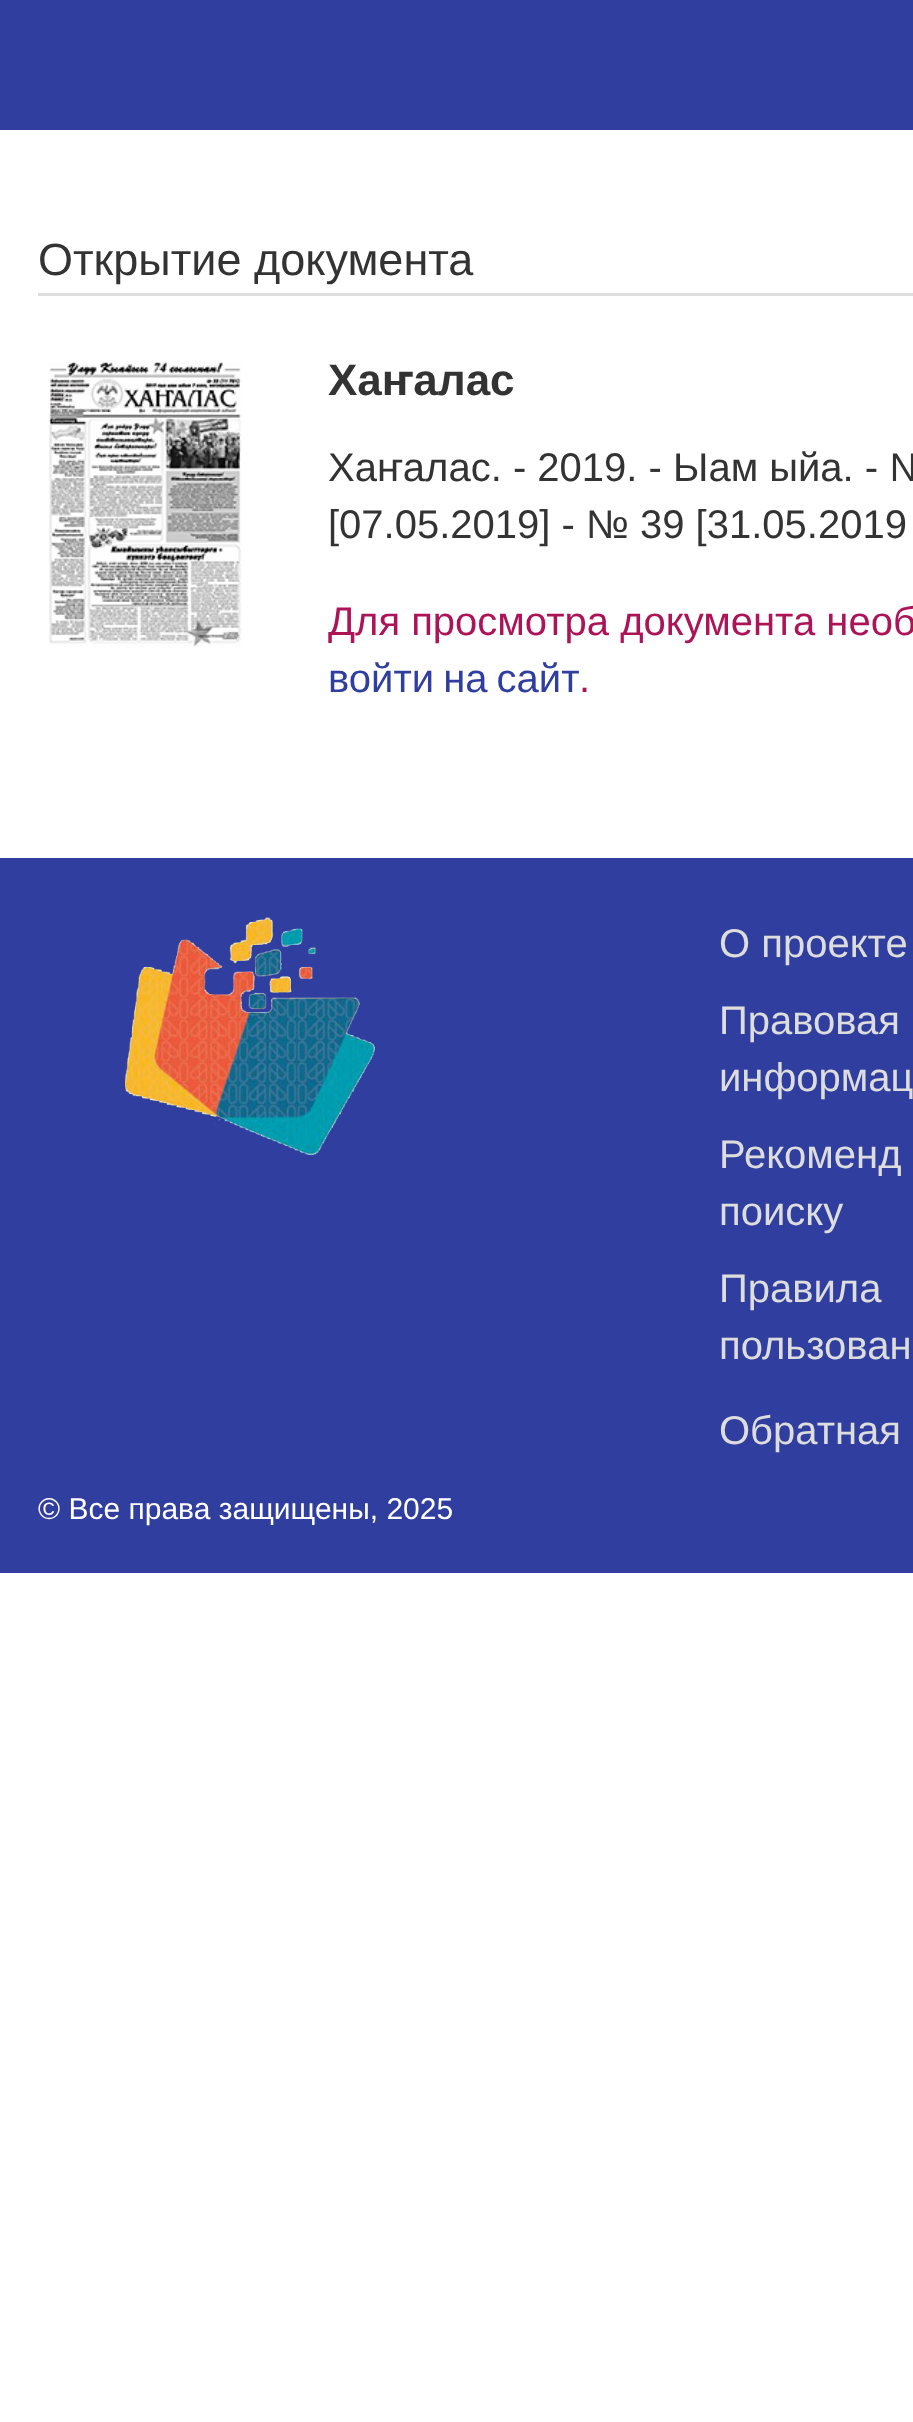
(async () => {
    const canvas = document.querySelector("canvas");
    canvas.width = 913;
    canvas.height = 2422;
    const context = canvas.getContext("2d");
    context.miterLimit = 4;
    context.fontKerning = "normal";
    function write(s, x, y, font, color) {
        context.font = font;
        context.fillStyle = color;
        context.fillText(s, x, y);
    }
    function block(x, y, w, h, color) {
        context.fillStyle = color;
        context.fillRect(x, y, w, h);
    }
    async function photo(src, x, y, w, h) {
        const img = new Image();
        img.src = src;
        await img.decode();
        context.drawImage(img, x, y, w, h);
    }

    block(0, 0, 913, 2422, "rgb(255, 255, 255)");
    block(0, 0, 913, 130, "rgb(48, 63, 159)");
    block(38, 293, 875, 3, "rgb(221, 221, 221)");
    write("Открытие документа", 38, 275, "45px Liberation Sans", "rgb(51, 51, 51)");
    await photo("media/1.png", 49, 362, 193, 285);
    write("Хаҥалас", 328, 395, "bold 44px Liberation Sans", "rgb(51, 51, 51)");
    write("Хаҥалас. - 2019. - Ыам ыйа. - №", 328, 481, "40px Liberation Sans", "rgb(51, 51, 51)");
    write("[07.05.2019] - № 39 [31.05.2019", 328, 538, "40px Liberation Sans", "rgb(51, 51, 51)");
    write("Для просмотра документа необ", 328, 635, "40px Liberation Sans", "rgb(173, 20, 87)");
    context.wordSpacing = "-2px";
    write("войти на сайт", 328, 692, "40px Liberation Sans", "rgb(48, 63, 159)");
    context.wordSpacing = "0px";
    write(".", 579, 692, "40px Liberation Sans", "rgb(173, 20, 87)");
    block(0, 858, 913, 715, "rgb(48, 63, 159)");
    await photo("media/2.png", 125, 917, 250, 238);
    write("О проекте", 719, 957, "40px Liberation Sans", "rgb(221, 221, 221)");
    write("Правовая", 719, 1034, "40px Liberation Sans", "rgb(221, 221, 221)");
    write("информац", 719, 1091, "40px Liberation Sans", "rgb(221, 221, 221)");
    write("Рекоменд", 719, 1168, "40px Liberation Sans", "rgb(221, 221, 221)");
    write("поиску", 719, 1225, "40px Liberation Sans", "rgb(221, 221, 221)");
    write("Правила", 719, 1302, "40px Liberation Sans", "rgb(221, 221, 221)");
    write("пользован", 719, 1359, "40px Liberation Sans", "rgb(221, 221, 221)");
    write("Обратная", 719, 1444, "40px Liberation Sans", "rgb(221, 221, 221)");
    write("© Все права защищены, 2025", 38, 1519, "30px Liberation Sans", "rgb(255, 255, 255)");
})();
